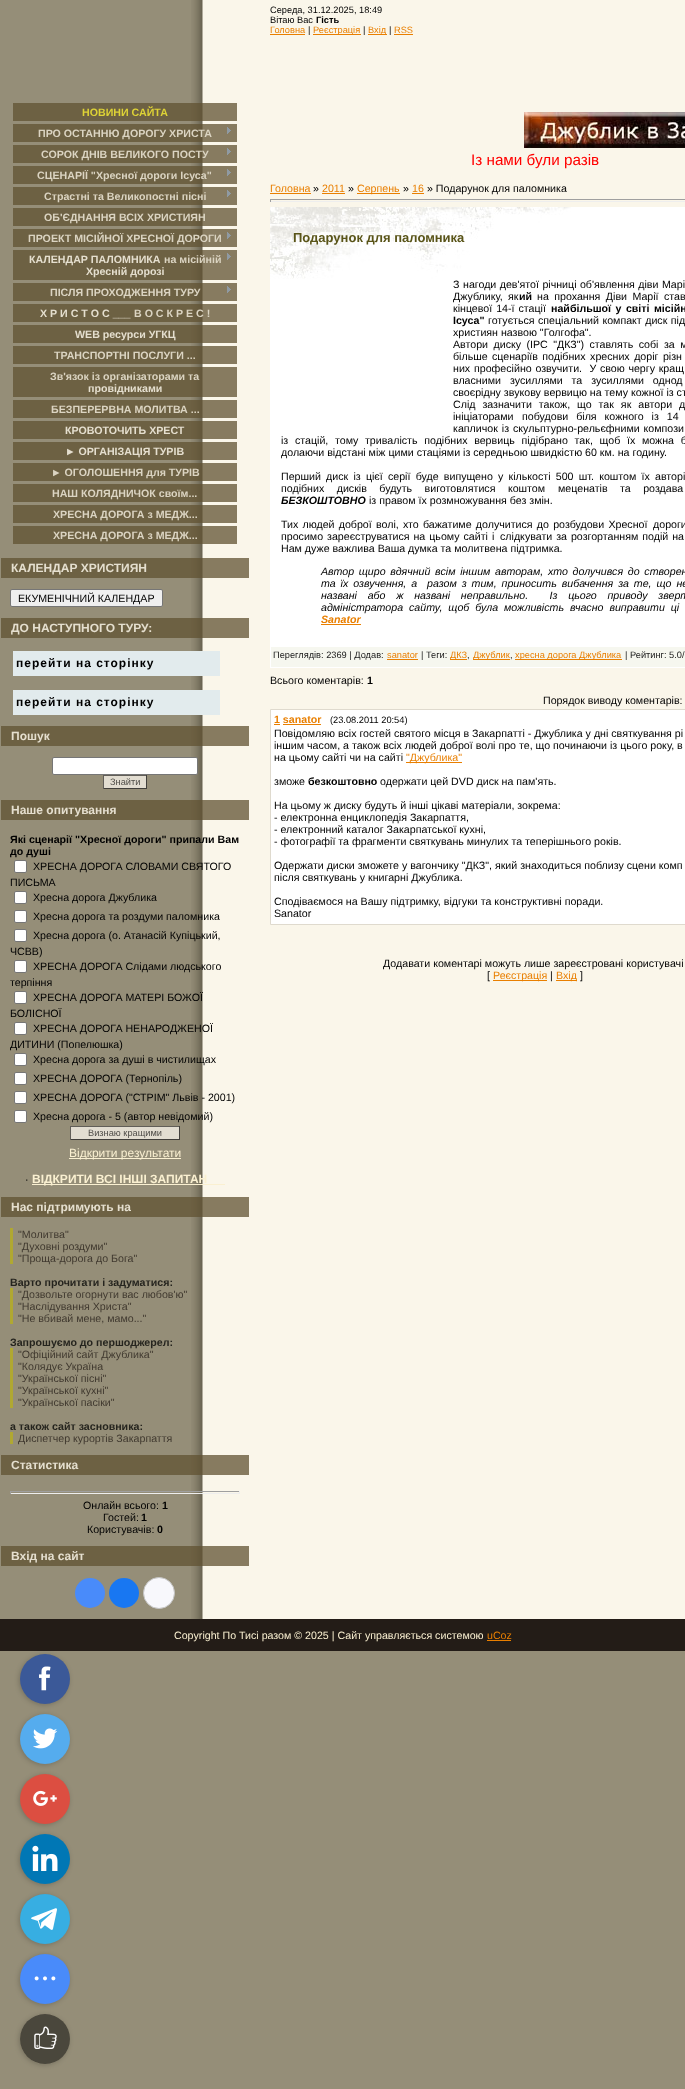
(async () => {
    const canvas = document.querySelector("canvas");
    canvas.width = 685;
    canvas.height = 2089;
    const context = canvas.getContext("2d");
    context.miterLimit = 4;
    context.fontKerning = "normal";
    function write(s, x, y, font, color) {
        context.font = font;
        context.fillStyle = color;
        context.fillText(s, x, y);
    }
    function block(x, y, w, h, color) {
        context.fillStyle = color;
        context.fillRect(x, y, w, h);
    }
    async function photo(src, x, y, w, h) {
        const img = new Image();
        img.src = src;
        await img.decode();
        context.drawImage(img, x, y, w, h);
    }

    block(0, 0, 685, 2089, "rgb(149, 142, 120)");
    await photo("media/1.png", 191, 0, 494, 1619);
    block(13, 103, 224, 18, "rgba(96, 82, 50, 0.75)");
    write("НОВИНИ САЙТА", 82, 116, "bold 10.65px Liberation Sans", "rgb(222, 211, 54)");
    block(13, 124, 224, 18, "rgba(96, 82, 50, 0.75)");
    write("ПРО ОСТАННЮ ДОРОГУ ХРИСТА", 38, 137, "bold 10.65px Liberation Sans", "rgb(219, 212, 194)");
    await photo("media/2.png", 227, 127, 4, 7);
    block(13, 145, 224, 18, "rgba(96, 82, 50, 0.75)");
    write("СОРОК ДНІВ ВЕЛИКОГО ПОСТУ", 41, 158, "bold 10.65px Liberation Sans", "rgb(219, 212, 194)");
    await photo("media/2.png", 227, 148, 4, 7);
    block(13, 166, 224, 18, "rgba(96, 82, 50, 0.75)");
    write("СЦЕНАРІЇ \"Хресної дороги Ісуса\"", 37, 179, "bold 10.65px Liberation Sans", "rgb(219, 212, 194)");
    await photo("media/2.png", 227, 169, 4, 7);
    block(13, 187, 224, 18, "rgba(96, 82, 50, 0.75)");
    write("Страстні та Великопостні пісні", 44, 200, "bold 10.65px Liberation Sans", "rgb(219, 212, 194)");
    await photo("media/2.png", 227, 190, 4, 7);
    block(13, 208, 224, 18, "rgba(96, 82, 50, 0.75)");
    write("ОБ'ЄДНАННЯ ВСІХ ХРИСТИЯН", 44, 221, "bold 10.65px Liberation Sans", "rgb(219, 212, 194)");
    block(13, 229, 224, 18, "rgba(96, 82, 50, 0.75)");
    write("ПРОЕКТ МІСІЙНОЇ ХРЕСНОЇ ДОРОГИ", 28, 242, "bold 10.65px Liberation Sans", "rgb(219, 212, 194)");
    await photo("media/2.png", 227, 232, 4, 7);
    block(13, 250, 224, 30, "rgba(96, 82, 50, 0.75)");
    write("КАЛЕНДАР ПАЛОМНИКА", 29, 263, "bold 10.65px Liberation Sans", "rgb(229, 223, 207)");
    write("на місійній", 164, 263, "bold 10.65px Liberation Sans", "rgb(219, 212, 194)");
    await photo("media/2.png", 227, 253, 4, 7);
    write("Хресній дорозі", 86, 275, "bold 10.65px Liberation Sans", "rgb(229, 223, 207)");
    block(13, 283, 224, 18, "rgba(96, 82, 50, 0.75)");
    write("ПІСЛЯ ПРОХОДЖЕННЯ ТУРУ", 50, 296, "bold 10.65px Liberation Sans", "rgb(219, 212, 194)");
    await photo("media/2.png", 227, 286, 4, 7);
    block(13, 304, 224, 18, "rgba(96, 82, 50, 0.75)");
    write("Х Р И С Т О С ___", 40, 317, "bold 10.65px Liberation Sans", "rgb(229, 223, 207)");
    write("В О С К Р Е С !", 134, 317, "bold 10.65px Liberation Sans", "rgb(219, 212, 194)");
    block(13, 325, 224, 18, "rgba(96, 82, 50, 0.75)");
    write("WEB ресурси УГКЦ", 75, 338, "bold 10.65px Liberation Sans", "rgb(229, 223, 207)");
    block(13, 346, 224, 18, "rgba(96, 82, 50, 0.75)");
    write("ТРАНСПОРТНІ ПОСЛУГИ ...", 54, 359, "bold 10.65px Liberation Sans", "rgb(219, 212, 194)");
    block(13, 367, 224, 30, "rgba(96, 82, 50, 0.75)");
    write("Зв'язок із організаторами та", 50, 380, "bold 10.65px Liberation Sans", "rgb(219, 212, 194)");
    write("провідниками", 88, 392, "bold 10.65px Liberation Sans", "rgb(229, 223, 207)");
    block(13, 400, 224, 18, "rgba(96, 82, 50, 0.75)");
    write("БЕЗПЕРЕРВНА МОЛИТВА ...", 51, 413, "bold 10.65px Liberation Sans", "rgb(219, 212, 194)");
    block(13, 421, 224, 18, "rgba(96, 82, 50, 0.75)");
    write("КРОВОТОЧИТЬ ХРЕСТ", 65, 434, "bold 10.65px Liberation Sans", "rgb(229, 223, 207)");
    block(13, 442, 224, 18, "rgba(96, 82, 50, 0.75)");
    write("► ОРГАНІЗАЦІЯ ТУРІВ", 65, 455, "bold 10.65px Liberation Sans", "rgb(229, 223, 207)");
    block(13, 463, 224, 18, "rgba(96, 82, 50, 0.75)");
    write("► ОГОЛОШЕННЯ для ТУРІВ", 51, 476, "bold 10.65px Liberation Sans", "rgb(219, 212, 194)");
    block(13, 484, 224, 18, "rgba(96, 82, 50, 0.75)");
    write("НАШ КОЛЯДНИЧОК своїм...", 52, 497, "bold 10.65px Liberation Sans", "rgb(219, 212, 194)");
    block(13, 505, 224, 18, "rgba(96, 82, 50, 0.75)");
    write("ХРЕСНА ДОРОГА з МЕДЖ...", 53, 518, "bold 10.65px Liberation Sans", "rgb(219, 212, 194)");
    block(13, 526, 224, 18, "rgba(96, 82, 50, 0.75)");
    write("ХРЕСНА ДОРОГА з МЕДЖ...", 53, 539, "bold 10.65px Liberation Sans", "rgb(219, 212, 194)");
    block(1, 558, 248, 20, "rgba(96, 82, 50, 0.75)");
    write("КАЛЕНДАР ХРИСТИЯН", 11, 572, "bold 12px Liberation Sans", "rgb(229, 223, 207)");
    context.fillStyle = "rgb(239, 239, 239)";
    context.beginPath();
    context.roundRect(10.5, 589.5, 152, 17, 1.5);
    context.fill();
    context.strokeStyle = "rgb(118, 118, 118)";
    context.stroke();
    write("ЕКУМЕНІЧНИЙ КАЛЕНДАР", 18, 602, "10.65px Liberation Sans", "rgb(0, 0, 0)");
    block(1, 618, 248, 20, "rgba(96, 82, 50, 0.75)");
    write("ДО НАСТУПНОГО ТУРУ:", 11, 632, "bold 12px Liberation Sans", "rgb(229, 223, 207)");
    block(13, 651, 207, 25, "rgb(226, 235, 237)");
    context.letterSpacing = "1px";
    write("перейти на сторінку", 16, 667, "bold 12px Liberation Sans", "rgb(0, 0, 0)");
    block(13, 690, 207, 25, "rgb(226, 235, 237)");
    write("перейти на сторінку", 16, 706, "bold 12px Liberation Sans", "rgb(0, 0, 0)");
    block(1, 726, 248, 20, "rgba(96, 82, 50, 0.75)");
    context.letterSpacing = "0px";
    write("Пошук", 11, 740, "bold 12px Liberation Sans", "rgb(229, 223, 207)");
    context.fillStyle = "rgb(255, 255, 255)";
    context.beginPath();
    context.roundRect(52.5, 757.5, 145, 17, 1.5);
    context.fill();
    context.stroke();
    block(104, 776, 42, 12, "rgb(226, 221, 209)");
    block(103, 775, 44, 1, "rgb(97, 94, 88)");
    block(146, 775, 1, 14, "rgb(65, 63, 59)");
    block(103, 788, 44, 1, "rgb(65, 63, 59)");
    block(103, 775, 1, 14, "rgb(97, 94, 88)");
    write("Знайти", 110, 785, "9.25px Liberation Sans", "rgb(79, 77, 72)");
    block(1, 800, 248, 20, "rgba(96, 82, 50, 0.75)");
    write("Наше опитування", 11, 814, "bold 12px Liberation Sans", "rgb(229, 223, 207)");
    write("Які сценарії \"Хресної дороги\" припали Вам", 10, 843, "bold 10.65px Liberation Sans", "rgb(0, 0, 0)");
    write("до душі", 10, 855, "bold 10.65px Liberation Sans", "rgb(0, 0, 0)");
    context.fillStyle = "rgb(255, 255, 255)";
    context.beginPath();
    context.roundRect(14.5, 860.5, 12, 12, 1.5);
    context.fill();
    context.stroke();
    write("ХРЕСНА ДОРОГА СЛОВАМИ СВЯТОГО", 33, 870, "10.65px Liberation Sans", "rgb(0, 0, 0)");
    write("ПИСЬМА", 10, 886, "10.65px Liberation Sans", "rgb(0, 0, 0)");
    context.fillStyle = "rgb(255, 255, 255)";
    context.beginPath();
    context.roundRect(14.5, 891.5, 12, 12, 1.5);
    context.fill();
    context.stroke();
    write("Хресна дорога Джублика", 33, 901, "10.65px Liberation Sans", "rgb(0, 0, 0)");
    context.fillStyle = "rgb(255, 255, 255)";
    context.beginPath();
    context.roundRect(14.5, 910.5, 12, 12, 1.5);
    context.fill();
    context.stroke();
    write("Хресна дорога та роздуми паломника", 33, 920, "10.65px Liberation Sans", "rgb(0, 0, 0)");
    context.fillStyle = "rgb(255, 255, 255)";
    context.beginPath();
    context.roundRect(14.5, 929.5, 12, 12, 1.5);
    context.fill();
    context.stroke();
    write("Хресна дорога (о. Атанасій Купіцький,", 33, 939, "10.65px Liberation Sans", "rgb(0, 0, 0)");
    write("ЧСВВ)", 10, 955, "10.65px Liberation Sans", "rgb(0, 0, 0)");
    context.fillStyle = "rgb(255, 255, 255)";
    context.beginPath();
    context.roundRect(14.5, 960.5, 12, 12, 1.5);
    context.fill();
    context.stroke();
    write("ХРЕСНА ДОРОГА Слідами людського", 33, 970, "10.65px Liberation Sans", "rgb(0, 0, 0)");
    write("терпіння", 10, 986, "10.65px Liberation Sans", "rgb(0, 0, 0)");
    context.fillStyle = "rgb(255, 255, 255)";
    context.beginPath();
    context.roundRect(14.5, 991.5, 12, 12, 1.5);
    context.fill();
    context.stroke();
    write("ХРЕСНА ДОРОГА МАТЕРІ БОЖОЇ", 33, 1001, "10.65px Liberation Sans", "rgb(0, 0, 0)");
    write("БОЛІСНОЇ", 10, 1017, "10.65px Liberation Sans", "rgb(0, 0, 0)");
    context.fillStyle = "rgb(255, 255, 255)";
    context.beginPath();
    context.roundRect(14.5, 1022.5, 12, 12, 1.5);
    context.fill();
    context.stroke();
    write("ХРЕСНА ДОРОГА НЕНАРОДЖЕНОЇ", 33, 1032, "10.65px Liberation Sans", "rgb(0, 0, 0)");
    write("ДИТИНИ (Попелюшка)", 10, 1048, "10.65px Liberation Sans", "rgb(0, 0, 0)");
    context.fillStyle = "rgb(255, 255, 255)";
    context.beginPath();
    context.roundRect(14.5, 1053.5, 12, 12, 1.5);
    context.fill();
    context.stroke();
    write("Хресна дорога за душі в чистилищах", 33, 1063, "10.65px Liberation Sans", "rgb(0, 0, 0)");
    context.fillStyle = "rgb(255, 255, 255)";
    context.beginPath();
    context.roundRect(14.5, 1072.5, 12, 12, 1.5);
    context.fill();
    context.stroke();
    write("ХРЕСНА ДОРОГА (Тернопіль)", 33, 1082, "10.65px Liberation Sans", "rgb(0, 0, 0)");
    context.fillStyle = "rgb(255, 255, 255)";
    context.beginPath();
    context.roundRect(14.5, 1091.5, 12, 12, 1.5);
    context.fill();
    context.stroke();
    write("ХРЕСНА ДОРОГА (\"СТРІМ\" Львів - 2001)", 33, 1101, "10.65px Liberation Sans", "rgb(0, 0, 0)");
    context.fillStyle = "rgb(255, 255, 255)";
    context.beginPath();
    context.roundRect(14.5, 1110.5, 12, 12, 1.5);
    context.fill();
    context.stroke();
    write("Хресна дорога - 5 (автор невідомий)", 33, 1120, "10.65px Liberation Sans", "rgb(0, 0, 0)");
    block(71, 1127, 108, 12, "rgb(226, 221, 209)");
    block(70, 1126, 110, 1, "rgb(97, 94, 88)");
    block(179, 1126, 1, 14, "rgb(65, 63, 59)");
    block(70, 1139, 110, 1, "rgb(65, 63, 59)");
    block(70, 1126, 1, 14, "rgb(97, 94, 88)");
    write("Визнаю кращими", 88, 1136, "9.25px Liberation Sans", "rgb(79, 77, 72)");
    block(69, 1158, 112, 1, "rgb(250, 240, 209)");
    write("Відкрити результати", 69, 1157, "12px Liberation Sans", "rgb(250, 240, 209)");
    write("·", 25, 1183, "10.65px Liberation Sans", "rgb(0, 0, 0)");
    block(32, 1184, 193, 1, "rgb(250, 240, 209)");
    write("ВІДКРИТИ ВСІ ІНШІ ЗАПИТАН", 32, 1183, "bold 12px Liberation Sans", "rgb(250, 240, 209)");
    block(1, 1197, 248, 20, "rgba(96, 82, 50, 0.75)");
    write("Нас підтримують на", 11, 1211, "bold 12px Liberation Sans", "rgb(229, 223, 207)");
    write("\"Молитва\"", 18, 1238, "10.65px Liberation Sans", "rgb(64, 57, 47)");
    block(10, 1228, 3, 36, "rgb(176, 168, 50)");
    write("\"Духовні роздуми\"", 18, 1250, "10.65px Liberation Sans", "rgb(64, 57, 47)");
    write("\"Проща-дорога до Бога\"", 18, 1262, "10.65px Liberation Sans", "rgb(64, 57, 47)");
    write("Варто прочитати і задуматися:", 10, 1286, "bold 10.65px Liberation Sans", "rgb(37, 36, 30)");
    write("\"Дозвольте огорнути вас любов'ю\"", 18, 1298, "10.65px Liberation Sans", "rgb(64, 57, 47)");
    block(10, 1288, 3, 36, "rgb(176, 168, 50)");
    write("\"Наслідування Христа\"", 18, 1310, "10.65px Liberation Sans", "rgb(64, 57, 47)");
    write("\"Не вбивай мене, мамо...\"", 18, 1322, "10.65px Liberation Sans", "rgb(64, 57, 47)");
    write("Запрошуємо до першоджерел:", 10, 1346, "bold 10.65px Liberation Sans", "rgb(37, 36, 30)");
    write("\"Офіційний сайт Джублика\"", 18, 1358, "10.65px Liberation Sans", "rgb(64, 57, 47)");
    block(10, 1348, 3, 60, "rgb(176, 168, 50)");
    write("\"Колядує Україна", 18, 1370, "10.65px Liberation Sans", "rgb(64, 57, 47)");
    write("\"Української пісні\"", 18, 1382, "10.65px Liberation Sans", "rgb(64, 57, 47)");
    write("\"Української кухні\"", 18, 1394, "10.65px Liberation Sans", "rgb(64, 57, 47)");
    write("\"Української пасіки\"", 18, 1406, "10.65px Liberation Sans", "rgb(64, 57, 47)");
    write("а також сайт засновника:", 10, 1430, "bold 10.65px Liberation Sans", "rgb(37, 36, 30)");
    write("Диспетчер курортів Закарпаття", 18, 1442, "10.65px Liberation Sans", "rgb(64, 57, 47)");
    block(10, 1432, 3, 12, "rgb(176, 168, 50)");
    block(1, 1455, 248, 20, "rgba(96, 82, 50, 0.75)");
    write("Статистика", 11, 1469, "bold 12px Liberation Sans", "rgb(229, 223, 207)");
    block(10, 1491, 230, 1, "rgb(159, 159, 159)");
    block(239, 1491, 1, 3, "rgb(238, 238, 238)");
    block(10, 1493, 230, 1, "rgb(238, 238, 238)");
    block(10, 1491, 1, 3, "rgb(159, 159, 159)");
    write("Онлайн всього:", 83, 1509, "10.65px Liberation Sans", "rgb(0, 0, 0)");
    write("1", 162, 1509, "bold 10.65px Liberation Sans", "rgb(0, 0, 0)");
    write("Гостей:", 103, 1521, "10.65px Liberation Sans", "rgb(0, 0, 0)");
    write("1", 141, 1521, "bold 10.65px Liberation Sans", "rgb(0, 0, 0)");
    write("Користувачів:", 87, 1533, "10.65px Liberation Sans", "rgb(0, 0, 0)");
    write("0", 157, 1533, "bold 10.65px Liberation Sans", "rgb(0, 0, 0)");
    block(1, 1546, 248, 20, "rgba(96, 82, 50, 0.75)");
    write("Вхід на сайт", 11, 1560, "bold 12px Liberation Sans", "rgb(229, 223, 207)");
    context.fillStyle = "rgb(73, 139, 250)";
    context.beginPath();
    context.arc(90, 1593, 15, 0, Math.PI * 2);
    context.fill();
    context.fillStyle = "rgb(24, 119, 242)";
    context.beginPath();
    context.arc(124, 1593, 15, 0, Math.PI * 2);
    context.fill();
    context.fillStyle = "rgb(248, 248, 252)";
    context.beginPath();
    context.arc(159, 1593, 15.5, 0, Math.PI * 2);
    context.fill();
    context.strokeStyle = "rgb(196, 196, 196)";
    context.stroke();
    write("Середа, 31.12.2025, 18:49", 270, 13, "9.25px Liberation Sans", "rgb(0, 0, 0)");
    write("Вітаю Вас", 270, 23, "9.25px Liberation Sans", "rgb(0, 0, 0)");
    write("Гість", 316, 23, "bold 9.25px Liberation Sans", "rgb(0, 0, 0)");
    write("Головна", 270, 33, "9.25px Liberation Sans", "rgb(233, 127, 0)");
    block(270, 34, 35, 1, "rgb(233, 127, 0)");
    write("|", 308, 33, "9.25px Liberation Sans", "rgb(0, 0, 0)");
    block(313, 34, 48, 1, "rgb(233, 127, 0)");
    write("Реєстрація", 313, 33, "9.25px Liberation Sans", "rgb(233, 127, 0)");
    write("|", 363, 33, "9.25px Liberation Sans", "rgb(0, 0, 0)");
    block(368, 34, 19, 1, "rgb(233, 127, 0)");
    write("Вхід", 368, 33, "9.25px Liberation Sans", "rgb(233, 127, 0)");
    write("|", 389, 33, "9.25px Liberation Sans", "rgb(0, 0, 0)");
    write("RSS", 394, 33, "9.25px Liberation Sans", "rgb(233, 127, 0)");
    block(394, 34, 19, 1, "rgb(233, 127, 0)");
    await photo("media/3.png", 524, 112, 161, 36);
    write("Із нами були разів", 471, 165, "15.25px Liberation Sans", "rgb(255, 0, 0)");
    write("Головна", 270, 192, "10.65px Liberation Sans", "rgb(233, 127, 0)");
    block(270, 193, 41, 1, "rgb(233, 127, 0)");
    write("»", 313, 192, "10.65px Liberation Sans", "rgb(0, 0, 0)");
    write("2011", 322, 192, "10.65px Liberation Sans", "rgb(233, 127, 0)");
    block(322, 193, 23, 1, "rgb(233, 127, 0)");
    write("»", 348, 192, "10.65px Liberation Sans", "rgb(0, 0, 0)");
    block(357, 193, 43, 1, "rgb(233, 127, 0)");
    write("Серпень", 357, 192, "10.65px Liberation Sans", "rgb(233, 127, 0)");
    write("»", 403, 192, "10.65px Liberation Sans", "rgb(0, 0, 0)");
    write("16", 412, 192, "10.65px Liberation Sans", "rgb(233, 127, 0)");
    block(412, 193, 12, 1, "rgb(233, 127, 0)");
    write("» Подарунок для паломника", 427, 192, "10.65px Liberation Sans", "rgb(0, 0, 0)");
    block(270, 199, 415, 1, "rgb(159, 159, 159)");
    block(270, 201, 415, 1, "rgb(238, 238, 238)");
    block(270, 199, 1, 3, "rgb(159, 159, 159)");
    block(270, 207, 415, 461, "rgb(255, 255, 255)");
    await photo("media/4.png", 270, 207, 301, 72);
    write("Подарунок для паломника", 293, 242, "bold 13px Liberation Sans", "rgb(89, 84, 24)");
    write("З", 453, 288, "10.65px Liberation Sans", "rgb(0, 0, 0)");
    context.wordSpacing = "0.5px";
    write("нагоди дев'ятої річниці об'явлення діви Марі", 463, 288, "10.65px Liberation Sans", "rgb(0, 0, 0)");
    context.wordSpacing = "2.5px";
    write("Джублику, як", 453, 300, "10.65px Liberation Sans", "rgb(0, 0, 0)");
    context.wordSpacing = "0px";
    write("ий", 519, 300, "bold 10.65px Liberation Sans", "rgb(0, 0, 0)");
    context.wordSpacing = "2.5px";
    write("на прохання Діви Марії став", 537, 300, "10.65px Liberation Sans", "rgb(0, 0, 0)");
    context.wordSpacing = "1px";
    write("кінцевої 14-ї стації", 453, 312, "10.65px Liberation Sans", "rgb(0, 0, 0)");
    context.wordSpacing = "1.5px";
    write("найбільшої у світі місійн", 551, 312, "bold 10.65px Liberation Sans", "rgb(0, 0, 0)");
    context.wordSpacing = "0px";
    write("Ісуса\"", 453, 324, "bold 10.65px Liberation Sans", "rgb(0, 0, 0)");
    context.wordSpacing = "0.5px";
    write("готується спеціальний компакт диск під", 488, 324, "10.65px Liberation Sans", "rgb(0, 0, 0)");
    context.wordSpacing = "0px";
    write("християн назвою \"Голгофа\".", 453, 336, "10.65px Liberation Sans", "rgb(0, 0, 0)");
    context.wordSpacing = "2.5px";
    write("Автори диску (ІРС \"ДКЗ\") ставлять собі за м", 453, 348, "10.65px Liberation Sans", "rgb(0, 0, 0)");
    context.wordSpacing = "0px";
    write("більше", 453, 360, "10.65px Liberation Sans", "rgb(0, 0, 0)");
    context.wordSpacing = "1.5px";
    write("сценаріїв подібних хресних доріг різн", 492, 360, "10.65px Liberation Sans", "rgb(0, 0, 0)");
    context.wordSpacing = "0px";
    write("них", 453, 372, "10.65px Liberation Sans", "rgb(0, 0, 0)");
    context.wordSpacing = "0.75px";
    write("професійно озвучити.  У свою чергу кращ", 474, 372, "10.65px Liberation Sans", "rgb(0, 0, 0)");
    context.wordSpacing = "0px";
    write("власними", 453, 384, "10.65px Liberation Sans", "rgb(0, 0, 0)");
    context.wordSpacing = "6px";
    write("зусиллями та зусиллями однод", 510, 384, "10.65px Liberation Sans", "rgb(0, 0, 0)");
    context.wordSpacing = "0px";
    write("своєрідну звукову вервицю на тему кожної із ст", 453, 396, "10.65px Liberation Sans", "rgb(0, 0, 0)");
    context.wordSpacing = "4px";
    write("Слід зазначити також, що так як автори д", 453, 408, "10.65px Liberation Sans", "rgb(0, 0, 0)");
    context.wordSpacing = "0px";
    write("ініціаторами", 453, 420, "10.65px Liberation Sans", "rgb(0, 0, 0)");
    context.wordSpacing = "5px";
    write("побудови біля кожного із 14", 522, 420, "10.65px Liberation Sans", "rgb(0, 0, 0)");
    context.wordSpacing = "1px";
    write("капличок із", 453, 432, "10.65px Liberation Sans", "rgb(0, 0, 0)");
    write("скульптурно-рельєфними компози", 513, 432, "10.65px Liberation Sans", "rgb(0, 0, 0)");
    context.wordSpacing = "3.75px";
    write("із стацій, тому", 281, 444, "10.65px Liberation Sans", "rgb(0, 0, 0)");
    write("тривалість подібних вервиць підібрано так, щоб їх можна б", 365, 444, "10.65px Liberation Sans", "rgb(0, 0, 0)");
    context.wordSpacing = "0px";
    write("долаючи відстані між цими стаціями із середньою швидкістю 60 км. на годину.", 281, 456, "10.65px Liberation Sans", "rgb(0, 0, 0)");
    context.wordSpacing = "2.25px";
    write("Перший диск із цієї серії буде випущено у кількості 500 шт. коштом їх", 281, 480, "10.65px Liberation Sans", "rgb(0, 0, 0)");
    write("авторі", 655, 480, "10.65px Liberation Sans", "rgb(0, 0, 0)");
    context.wordSpacing = "9.5px";
    write("подібних дисків будуть виготовлятися коштом", 281, 492, "10.65px Liberation Sans", "rgb(0, 0, 0)");
    write("меценатів та роздава", 558, 492, "10.65px Liberation Sans", "rgb(0, 0, 0)");
    context.wordSpacing = "0px";
    write("БЕЗКОШТОВНО", 281, 504, "italic bold 10.65px Liberation Sans", "rgb(0, 0, 0)");
    write("із правом їх розмножування без змін.", 369, 504, "10.65px Liberation Sans", "rgb(0, 0, 0)");
    context.wordSpacing = "1.25px";
    write("Тих людей доброї волі, хто бажатиме долучитися до розбудови Хресної", 281, 528, "10.65px Liberation Sans", "rgb(0, 0, 0)");
    context.wordSpacing = "0px";
    write("дороги", 653, 528, "10.65px Liberation Sans", "rgb(0, 0, 0)");
    context.wordSpacing = "1px";
    write("просимо зареєструватися на цьому сайті і", 281, 540, "10.65px Liberation Sans", "rgb(0, 0, 0)");
    write("слідкувати за розгортанням подій на", 500, 540, "10.65px Liberation Sans", "rgb(0, 0, 0)");
    context.wordSpacing = "0px";
    write("Нам дуже важлива Ваша думка та молитвена підтримка.", 281, 552, "10.65px Liberation Sans", "rgb(0, 0, 0)");
    context.wordSpacing = "1.75px";
    write("Автор щиро вдячний всім іншим авторам, хто долучився до створен", 321, 575, "italic 10.65px Liberation Sans", "rgb(0, 0, 0)");
    context.wordSpacing = "2px";
    write("та їх озвучення, а  разом з тим, приносить вибачення за те, що не", 321, 587, "italic 10.65px Liberation Sans", "rgb(0, 0, 0)");
    context.wordSpacing = "7.75px";
    write("названі або ж названі неправильно.  Із цього приводу зверт", 321, 599, "italic 10.65px Liberation Sans", "rgb(0, 0, 0)");
    context.wordSpacing = "3px";
    write("адміністратора сайту, щоб була можливість вчасно виправити ці", 321, 611, "italic 10.65px Liberation Sans", "rgb(0, 0, 0)");
    context.wordSpacing = "0px";
    write("Sanator", 321, 623, "italic bold 10.65px Liberation Sans", "rgb(233, 127, 0)");
    block(321, 624, 40, 1, "rgb(233, 127, 0)");
    block(271, 647, 414, 20, "rgb(246, 247, 239)");
    write("Переглядів: 2369 | Додав:", 273, 658, "9.25px Liberation Sans", "rgb(26, 26, 26)");
    write("sanator", 387, 658, "9.25px Liberation Sans", "rgb(233, 127, 0)");
    block(387, 659, 31, 1, "rgb(233, 127, 0)");
    write("| Теги:", 421, 658, "9.25px Liberation Sans", "rgb(26, 26, 26)");
    block(450, 659, 17, 1, "rgb(233, 127, 0)");
    write("ДКЗ", 450, 658, "9.25px Liberation Sans", "rgb(233, 127, 0)");
    write(",", 467, 658, "9.25px Liberation Sans", "rgb(26, 26, 26)");
    block(473, 659, 37, 1, "rgb(233, 127, 0)");
    write("Джублик", 473, 658, "9.25px Liberation Sans", "rgb(233, 127, 0)");
    write(",", 510, 658, "9.25px Liberation Sans", "rgb(26, 26, 26)");
    block(515, 659, 107, 1, "rgb(233, 127, 0)");
    write("хресна дорога Джублика", 515, 658, "9.25px Liberation Sans", "rgb(233, 127, 0)");
    write("| Рейтинг: 5.0/", 625, 658, "9.25px Liberation Sans", "rgb(26, 26, 26)");
    write("Всього коментарів:", 270, 684, "10.65px Liberation Sans", "rgb(0, 0, 0)");
    write("1", 367, 684, "bold 10.65px Liberation Sans", "rgb(0, 0, 0)");
    write("Порядок виводу коментарів:", 543, 704, "10.65px Liberation Sans", "rgb(0, 0, 0)");
    context.fillStyle = "rgb(255, 255, 255)";
    context.beginPath();
    context.rect(270.5, 709.5, 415, 215);
    context.fill();
    context.strokeStyle = "rgb(223, 218, 206)";
    context.stroke();
    write("1 sanator", 274, 723, "bold 10.65px Liberation Sans", "rgb(233, 127, 0)");
    block(274, 724, 6, 1, "rgb(233, 127, 0)");
    write("(23.08.2011 20:54)", 330, 723, "9.25px Liberation Sans", "rgb(0, 0, 0)");
    block(283, 724, 38, 1, "rgb(233, 127, 0)");
    write("Повідомляю всіх гостей святого місця в Закарпатті - Джублика у дні святкування рі", 274, 737, "10.65px Liberation Sans", "rgb(0, 0, 0)");
    write("іншим часом, а також всіх людей доброї волі про те, що починаючи із цього року, в", 274, 749, "10.65px Liberation Sans", "rgb(0, 0, 0)");
    write("на цьому сайті чи на сайті", 274, 761, "10.65px Liberation Sans", "rgb(0, 0, 0)");
    block(406, 762, 56, 1, "rgb(233, 127, 0)");
    write("\"Джублика\"", 406, 761, "10.65px Liberation Sans", "rgb(233, 127, 0)");
    write("зможе", 274, 785, "10.65px Liberation Sans", "rgb(0, 0, 0)");
    write("безкоштовно", 308, 785, "bold 10.65px Liberation Sans", "rgb(0, 0, 0)");
    write("одержати цей DVD диск на пам'ять.", 380, 785, "10.65px Liberation Sans", "rgb(0, 0, 0)");
    write("На цьому ж диску будуть й інші цікаві матеріали, зокрема:", 274, 809, "10.65px Liberation Sans", "rgb(0, 0, 0)");
    write("- електронна енциклопедія Закарпаття,", 274, 821, "10.65px Liberation Sans", "rgb(0, 0, 0)");
    write("- електронний каталог Закарпатської кухні,", 274, 833, "10.65px Liberation Sans", "rgb(0, 0, 0)");
    write("- фотографії та фрагменти святкувань минулих та теперішнього років.", 274, 845, "10.65px Liberation Sans", "rgb(0, 0, 0)");
    write("Одержати диски зможете у вагончику \"ДКЗ\", який знаходиться поблизу сцени комп", 274, 869, "10.65px Liberation Sans", "rgb(0, 0, 0)");
    write("після святкувань у книгарні Джублика.", 274, 881, "10.65px Liberation Sans", "rgb(0, 0, 0)");
    write("Сподіваємося на Вашу підтримку, відгуки та конструктивні поради.", 274, 905, "10.65px Liberation Sans", "rgb(0, 0, 0)");
    write("Sanator", 274, 917, "10.65px Liberation Sans", "rgb(0, 0, 0)");
    write("Додавати коментарі можуть лише зареєстровані користувачі", 383, 967, "10.65px Liberation Sans", "rgb(0, 0, 0)");
    write("[", 487, 979, "10.65px Liberation Sans", "rgb(0, 0, 0)");
    block(493, 980, 54, 1, "rgb(233, 127, 0)");
    write("Реєстрація", 493, 979, "10.65px Liberation Sans", "rgb(233, 127, 0)");
    write("|", 550, 979, "10.65px Liberation Sans", "rgb(0, 0, 0)");
    block(556, 980, 21, 1, "rgb(233, 127, 0)");
    write("Вхід", 556, 979, "10.65px Liberation Sans", "rgb(233, 127, 0)");
    write("]", 580, 979, "10.65px Liberation Sans", "rgb(0, 0, 0)");
    block(0, 1619, 685, 32, "rgb(35, 28, 23)");
    write("Copyright По Тисі разом © 2025 | Сайт управляється системою", 174, 1639, "10.65px Liberation Sans", "rgb(250, 240, 209)");
    write("uCoz", 487, 1639, "10.65px Liberation Sans", "rgb(233, 127, 0)");
    block(487, 1640, 24, 1, "rgb(233, 127, 0)");
    context.fillStyle = "rgba(0, 0, 0, 0.2)";
    context.filter = "blur(2.5px)";
    context.beginPath();
    context.roundRect(19, 1655, 50, 50, 25);
    context.fill();
    context.filter = "none";
    context.fillStyle = "rgb(59, 89, 152)";
    context.beginPath();
    context.arc(45, 1679, 25, 0, Math.PI * 2);
    context.fill();
    await photo("media/5.png", 39, 1666, 12, 25);
    context.fillStyle = "rgba(0, 0, 0, 0.2)";
    context.filter = "blur(2.5px)";
    context.beginPath();
    context.roundRect(19, 1715, 50, 50, 25);
    context.fill();
    context.filter = "none";
    context.fillStyle = "rgb(85, 172, 238)";
    context.beginPath();
    context.arc(45, 1739, 25, 0, Math.PI * 2);
    context.fill();
    await photo("media/6.png", 33, 1728, 25, 21);
    context.fillStyle = "rgba(0, 0, 0, 0.2)";
    context.filter = "blur(2.5px)";
    context.beginPath();
    context.roundRect(19, 1775, 50, 50, 25);
    context.fill();
    context.filter = "none";
    context.fillStyle = "rgb(220, 78, 65)";
    context.beginPath();
    context.arc(45, 1799, 25, 0, Math.PI * 2);
    context.fill();
    await photo("media/7.png", 33, 1790, 24, 16);
    context.fillStyle = "rgba(0, 0, 0, 0.2)";
    context.filter = "blur(2.5px)";
    context.beginPath();
    context.roundRect(19, 1835, 50, 50, 25);
    context.fill();
    context.filter = "none";
    context.fillStyle = "rgb(0, 119, 181)";
    context.beginPath();
    context.arc(45, 1859, 25, 0, Math.PI * 2);
    context.fill();
    await photo("media/8.png", 32, 1845, 26, 26);
    context.fillStyle = "rgba(0, 0, 0, 0.2)";
    context.filter = "blur(2.5px)";
    context.beginPath();
    context.roundRect(19, 1895, 50, 50, 25);
    context.fill();
    context.filter = "none";
    context.fillStyle = "rgb(55, 174, 226)";
    context.beginPath();
    context.arc(45, 1919, 25, 0, Math.PI * 2);
    context.fill();
    await photo("media/9.png", 31, 1908, 26, 22);
    context.fillStyle = "rgba(0, 0, 0, 0.2)";
    context.filter = "blur(2.5px)";
    context.beginPath();
    context.roundRect(19, 1955, 50, 50, 25);
    context.fill();
    context.filter = "none";
    context.fillStyle = "rgb(73, 139, 250)";
    context.beginPath();
    context.arc(45, 1979, 25, 0, Math.PI * 2);
    context.fill();
    await photo("media/10.png", 34, 1976, 22, 5);
    context.save();
    context.beginPath();
    context.moveTo(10, 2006);
    context.lineTo(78, 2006);
    context.lineTo(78, 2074);
    context.lineTo(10, 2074);
    context.closePath();
    context.moveTo(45, 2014);
    context.bezierCurveTo(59, 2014, 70, 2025, 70, 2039);
    context.bezierCurveTo(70, 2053, 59, 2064, 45, 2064);
    context.bezierCurveTo(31, 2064, 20, 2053, 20, 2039);
    context.bezierCurveTo(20, 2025, 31, 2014, 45, 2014);
    context.closePath();
    context.clip("evenodd");
    context.fillStyle = "rgba(0, 0, 0, 0.2)";
    context.filter = "blur(2.5px)";
    context.beginPath();
    context.roundRect(19, 2015, 50, 50, 25);
    context.fill();
    context.filter = "none";
    context.restore();
    context.fillStyle = "rgba(0, 0, 0, 0.5)";
    context.beginPath();
    context.arc(45, 2039, 25, 0, Math.PI * 2);
    context.fill();
    await photo("media/11.png", 34, 2026, 23, 23);
})();
